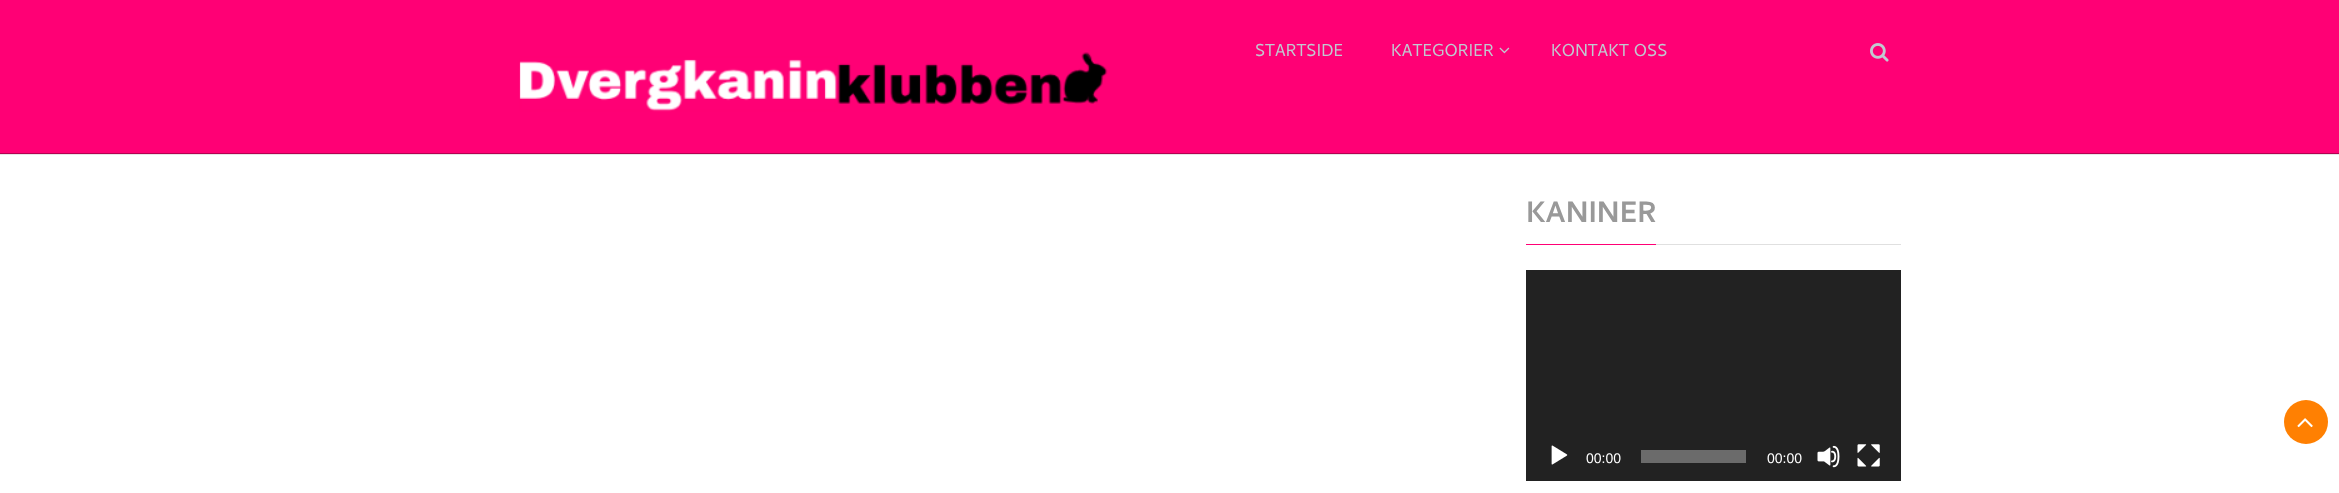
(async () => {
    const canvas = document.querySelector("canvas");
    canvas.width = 2339;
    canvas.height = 493;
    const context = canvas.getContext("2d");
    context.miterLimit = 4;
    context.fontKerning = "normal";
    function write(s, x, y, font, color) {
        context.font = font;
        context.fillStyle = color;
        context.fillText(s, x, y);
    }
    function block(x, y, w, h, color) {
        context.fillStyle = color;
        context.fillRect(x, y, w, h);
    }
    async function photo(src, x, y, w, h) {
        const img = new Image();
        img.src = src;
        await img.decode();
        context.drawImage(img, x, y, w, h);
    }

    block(0, 0, 2339, 493, "rgb(255, 255, 255)");
    context.fillStyle = "rgba(0, 0, 0, 0.1)";
    context.filter = "blur(0.5px)";
    context.beginPath();
    context.rect(0, 1, 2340, 154);
    context.fill();
    context.filter = "none";
    block(0, 0, 2339, 153, "rgb(255, 0, 117)");
    block(0, 153, 2339, 1, "rgb(179, 0, 82)");
    await photo("media/1.png", 519, 52, 589, 60);
    write("STARTSIDE", 1255, 56, "17.5px Cambay", "rgb(193, 201, 209)");
    write("KATEGORIER", 1391, 56, "17.5px Cambay", "rgb(193, 201, 209)");
    await photo("media/2.png", 1499, 47, 11, 7);
    write("KONTAKT OSS", 1551, 56, "17.5px Cambay", "rgb(193, 201, 209)");
    await photo("media/3.png", 1870, 43, 19, 19);
    block(1656, 244, 245, 1, "rgb(224, 224, 224)");
    write("KANINER", 1526, 222, "bold 30px Cambay", "rgb(153, 153, 153)");
    block(1526, 244, 130, 1, "rgb(255, 0, 117)");
    block(1526, 270, 375, 211, "rgb(34, 34, 34)");
    await photo("media/4.png", 1551, 445, 17, 20);
    write("00:00", 1586, 463, "14px Liberation Sans", "rgb(255, 255, 255)");
    block(1641, 450, 105, 13, "rgb(107, 107, 107)");
    write("00:00", 1767, 463, "14px Liberation Sans", "rgb(255, 255, 255)");
    await photo("media/5.png", 1817, 445, 23, 23);
    await photo("media/6.png", 1857, 444, 23, 23);
    context.fillStyle = "rgb(255, 128, 2)";
    context.beginPath();
    context.arc(2306, 422, 22, 0, Math.PI * 2);
    context.fill();
    await photo("media/7.png", 2297, 418, 16, 10);
})();
